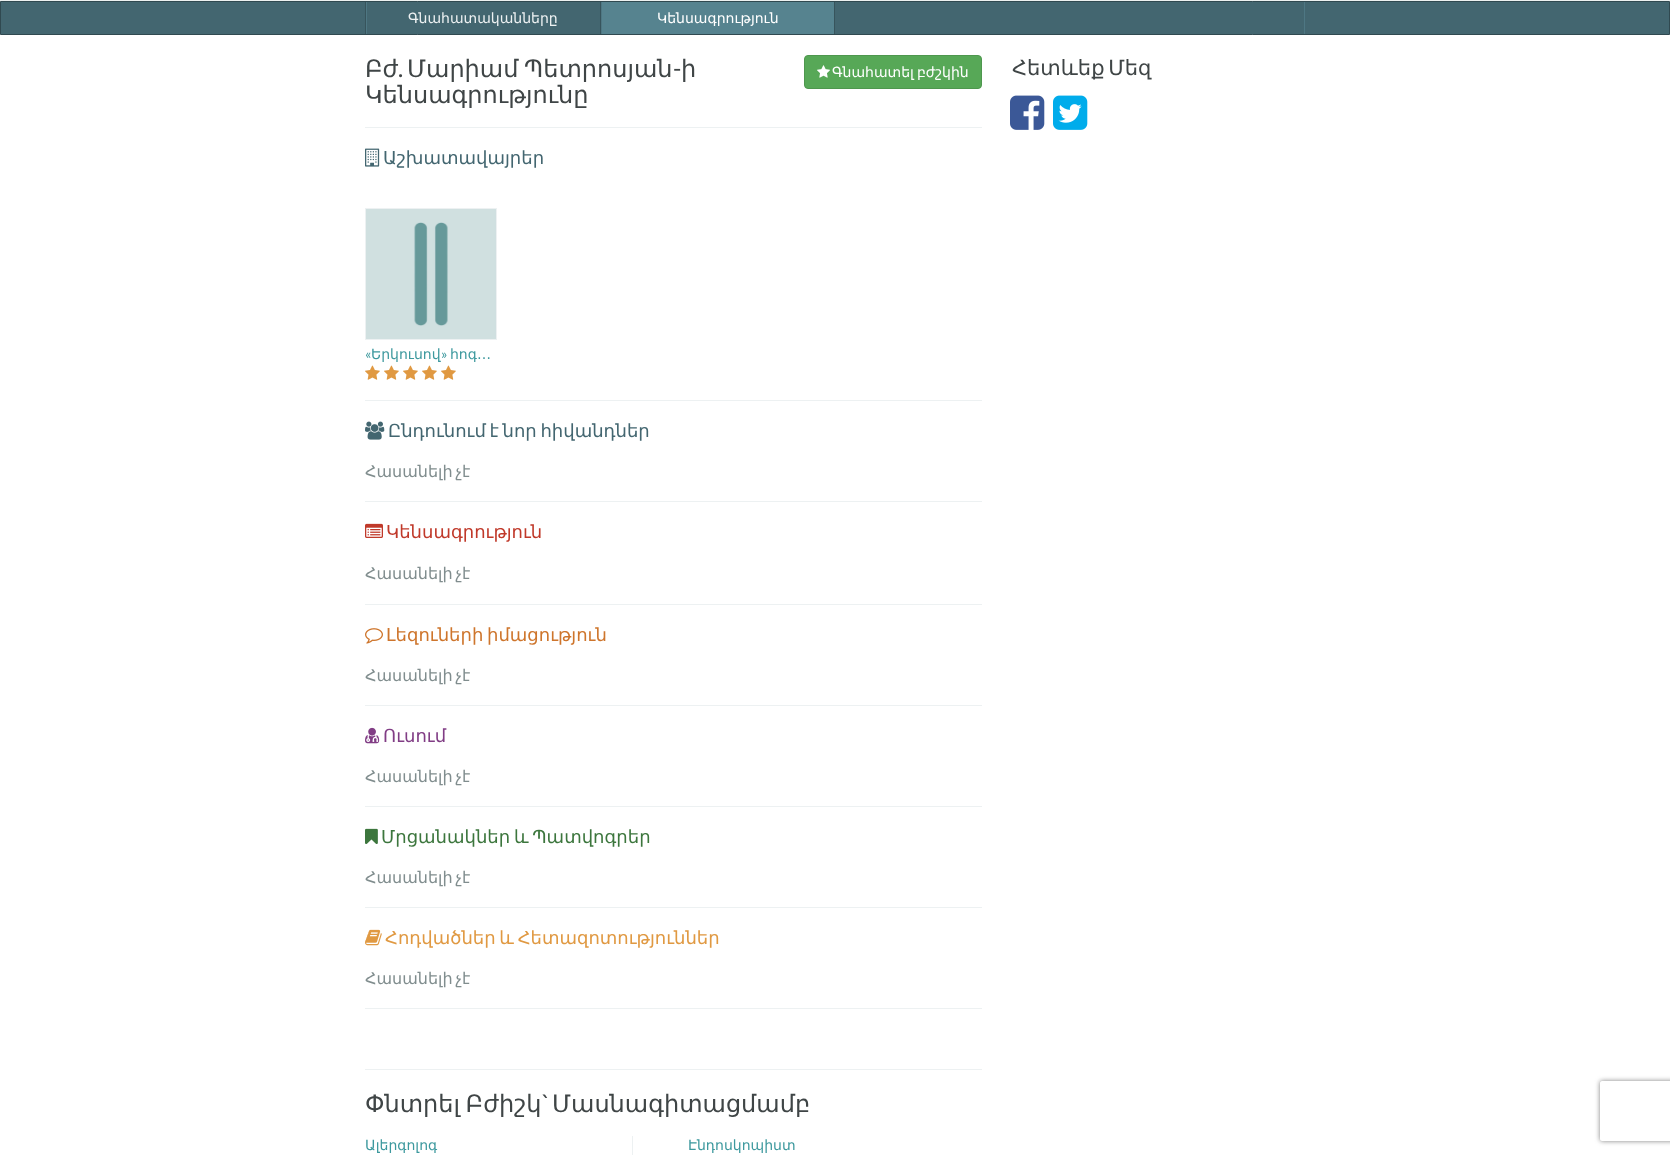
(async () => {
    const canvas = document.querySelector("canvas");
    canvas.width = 1670;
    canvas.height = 1155;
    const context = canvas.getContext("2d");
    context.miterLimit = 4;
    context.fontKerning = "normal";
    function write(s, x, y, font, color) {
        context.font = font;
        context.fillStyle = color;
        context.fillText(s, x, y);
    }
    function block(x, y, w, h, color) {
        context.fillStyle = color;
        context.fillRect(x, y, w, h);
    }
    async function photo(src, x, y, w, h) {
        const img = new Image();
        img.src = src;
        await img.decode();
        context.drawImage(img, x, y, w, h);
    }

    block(0, 0, 1670, 1155, "rgb(255, 255, 255)");
    block(0, 0, 1670, 1, "rgb(237, 241, 240)");
    context.fillStyle = "rgb(67, 102, 112)";
    context.beginPath();
    context.rect(0.5, 1.5, 1669, 33);
    context.fill();
    context.strokeStyle = "rgb(48, 73, 80)";
    context.stroke();
    block(1304, 2, 1, 32, "rgb(78, 119, 131)");
    block(365, 2, 1, 32, "rgb(55, 84, 92)");
    block(600, 2, 1, 32, "rgb(55, 84, 92)");
    block(366, 2, 1, 32, "rgb(78, 119, 131)");
    write("Գնահատականները", 408, 23, "14px DejaVu Sans", "rgb(237, 241, 242)");
    block(602, 2, 232, 32, "rgb(86, 131, 143)");
    block(834, 2, 1, 32, "rgb(55, 84, 92)");
    block(601, 2, 1, 32, "rgb(78, 119, 131)");
    write("Կենսագրություն", 657, 23, "14px DejaVu Sans", "rgb(255, 255, 255)");
    write("Բժ", 365, 77, "24px DejaVu Sans", "rgb(63, 69, 70)");
    context.wordSpacing = "-2px";
    write("Մարիամ Պետրոսյան", 407, 77, "24px DejaVu Sans", "rgb(63, 69, 70)");
    context.wordSpacing = "0px";
    write("-", 673, 77, "24px Lato", "rgb(63, 69, 70)");
    write("ի", 681, 77, "24px DejaVu Sans", "rgb(63, 69, 70)");
    write(".", 398, 77, "24px Lato", "rgb(63, 69, 70)");
    write("Կենսագրությունը", 365, 103, "24px DejaVu Sans", "rgb(63, 69, 70)");
    context.fillStyle = "rgb(87, 168, 87)";
    context.beginPath();
    context.roundRect(804.5, 55.5, 177, 33, 3.5);
    context.fill();
    context.strokeStyle = "rgb(78, 151, 78)";
    context.stroke();
    await photo("media/1.png", 817, 65, 13, 13);
    write("Գնահատել", 832, 77, "14px DejaVu Sans", "rgb(255, 255, 255)");
    write("բժշկին", 917, 77, "14px DejaVu Sans", "rgb(255, 255, 255)");
    block(365, 127, 617, 1, "rgb(237, 241, 242)");
    await photo("media/2.png", 365, 148, 15, 19);
    write("Աշխատավայրեր", 383, 164, "18px DejaVu Sans", "rgb(67, 102, 112)");
    context.strokeStyle = "rgb(237, 241, 242)";
    context.strokeRect(365.5, 208.5, 131, 131);
    await photo("media/3.png", 366, 209, 130, 130);
    write("«", 365, 359, "14px Lato", "rgb(61, 153, 158)");
    write("Երկուսով", 371, 359, "14px DejaVu Sans", "rgb(61, 153, 158)");
    write("»", 441, 359, "14px Lato", "rgb(61, 153, 158)");
    context.wordSpacing = "-2px";
    write("հոգ…", 450, 359, "14px DejaVu Sans", "rgb(61, 153, 158)");
    await photo("media/4.png", 365, 365, 15, 15);
    await photo("media/4.png", 384, 365, 15, 15);
    await photo("media/4.png", 403, 365, 15, 15);
    await photo("media/4.png", 422, 365, 15, 15);
    await photo("media/4.png", 441, 365, 15, 15);
    block(365, 400, 617, 1, "rgb(237, 241, 242)");
    await photo("media/5.png", 365, 421, 20, 19);
    write("Ընդունում է նոր հիվանդներ", 388, 437, "18px DejaVu Sans", "rgb(67, 102, 112)");
    write("Հասանելի չէ", 365, 477, "16px DejaVu Sans", "rgb(128, 141, 142)");
    block(365, 501, 617, 1, "rgb(237, 241, 242)");
    await photo("media/6.png", 365, 523, 18, 15);
    context.wordSpacing = "0px";
    write("Կենսագրություն", 386, 538, "18px DejaVu Sans", "rgb(192, 57, 42)");
    context.wordSpacing = "-2px";
    write("Հասանելի չէ", 365, 579, "16px DejaVu Sans", "rgb(128, 141, 142)");
    block(365, 604, 617, 1, "rgb(237, 241, 242)");
    await photo("media/7.png", 365, 628, 18, 16);
    write("Լեզուների իմացություն", 386, 641, "18px DejaVu Sans", "rgb(206, 117, 44)");
    write("Հասանելի չէ", 365, 681, "16px DejaVu Sans", "rgb(128, 141, 142)");
    block(365, 705, 617, 1, "rgb(237, 241, 242)");
    await photo("media/8.png", 365, 727, 15, 17);
    context.wordSpacing = "0px";
    write("Ուսում", 383, 742, "18px DejaVu Sans", "rgb(129, 61, 133)");
    context.wordSpacing = "-2px";
    write("Հասանելի չէ", 365, 782, "16px DejaVu Sans", "rgb(128, 141, 142)");
    block(365, 806, 617, 1, "rgb(237, 241, 242)");
    await photo("media/9.png", 365, 828, 13, 16);
    write("Մրցանակներ և Պատվոգրեր", 381, 843, "18px DejaVu Sans", "rgb(60, 118, 61)");
    write("Հասանելի չէ", 365, 883, "16px DejaVu Sans", "rgb(128, 141, 142)");
    block(365, 907, 617, 1, "rgb(237, 241, 242)");
    await photo("media/10.png", 365, 929, 17, 17);
    write("Հոդվածներ և Հետազոտություններ", 385, 944, "18px DejaVu Sans", "rgb(224, 153, 66)");
    write("Հասանելի չէ", 365, 984, "16px DejaVu Sans", "rgb(128, 141, 142)");
    block(365, 1008, 617, 1, "rgb(237, 241, 242)");
    context.wordSpacing = "-3px";
    write("Հետևեք Մեզ", 1012, 75, "21px DejaVu Sans", "rgb(63, 69, 70)");
    await photo("media/11.png", 1010, 95, 35, 35);
    await photo("media/12.png", 1053, 95, 35, 35);
    block(365, 1069, 617, 1, "rgb(237, 241, 242)");
    context.wordSpacing = "-2px";
    write("Փնտրել Բժիշկ", 365, 1112, "24px DejaVu Sans", "rgb(63, 69, 70)");
    context.wordSpacing = "0px";
    write("`", 542, 1112, "24px Lato", "rgb(63, 69, 70)");
    write("Մասնագիտացմամբ", 552, 1112, "24px DejaVu Sans", "rgb(63, 69, 70)");
    block(632, 1136, 1, 19, "rgb(237, 241, 242)");
    write("Ալերգոլոգ", 365, 1150, "14px DejaVu Sans", "rgb(61, 153, 158)");
    write("Էնդոսկոպիստ", 688, 1150, "14px DejaVu Sans", "rgb(61, 153, 158)");
    context.save();
    context.beginPath();
    context.moveTo(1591, 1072);
    context.lineTo(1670, 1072);
    context.lineTo(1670, 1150);
    context.lineTo(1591, 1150);
    context.closePath();
    context.moveTo(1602, 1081);
    context.lineTo(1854, 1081);
    context.bezierCurveTo(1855, 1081, 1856, 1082, 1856, 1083);
    context.lineTo(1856, 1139);
    context.bezierCurveTo(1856, 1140, 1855, 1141, 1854, 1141);
    context.lineTo(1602, 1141);
    context.bezierCurveTo(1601, 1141, 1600, 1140, 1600, 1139);
    context.lineTo(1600, 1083);
    context.bezierCurveTo(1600, 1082, 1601, 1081, 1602, 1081);
    context.closePath();
    context.clip("evenodd");
    context.fillStyle = "rgb(128, 128, 128)";
    context.filter = "blur(2.5px)";
    context.beginPath();
    context.roundRect(1600, 1081, 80, 60, 2);
    context.fill();
    context.filter = "none";
    context.restore();
})();
